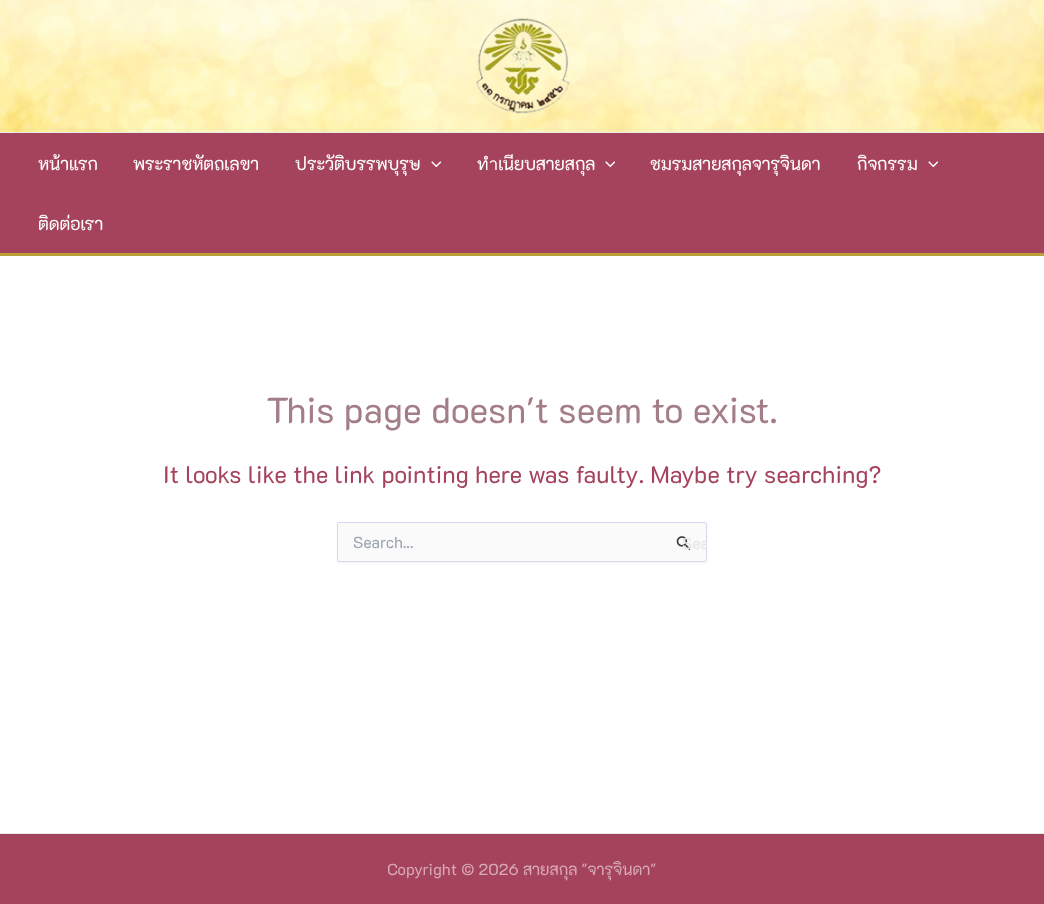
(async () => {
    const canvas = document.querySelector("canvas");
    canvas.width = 1044;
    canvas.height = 904;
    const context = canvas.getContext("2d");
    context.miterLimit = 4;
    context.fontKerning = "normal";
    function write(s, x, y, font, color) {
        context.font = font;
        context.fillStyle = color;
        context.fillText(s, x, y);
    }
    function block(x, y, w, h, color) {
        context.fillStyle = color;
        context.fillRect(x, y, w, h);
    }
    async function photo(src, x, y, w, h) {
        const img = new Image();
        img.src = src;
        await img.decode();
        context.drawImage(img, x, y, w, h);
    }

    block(0, 0, 1044, 904, "rgb(255, 255, 255)");
    await photo("media/1.png", 0, 0, 1044, 132);
    block(0, 132, 1044, 1, "rgb(234, 234, 234)");
    await photo("media/2.png", 476, 18, 94, 96);
    block(0, 133, 1044, 120, "rgb(166, 67, 92)");
    block(0, 253, 1044, 3, "rgb(187, 160, 55)");
    write("หน้าแรก", 38, 170, "17.5px 'K2D'", "rgb(255, 255, 255)");
    write("พระราชหัตถเลขา", 133, 170, "17.5px 'K2D'", "rgb(255, 255, 255)");
    write("ประวัติบรรพบุรุษ", 295, 170, "17.5px 'K2D'", "rgb(255, 255, 255)");
    await photo("media/3.png", 431, 161, 11, 7);
    write("ทำเนียบสายสกุล", 477, 170, "17.5px 'K2D'", "rgb(255, 255, 255)");
    await photo("media/4.png", 605, 161, 10, 7);
    write("ชมรมสายสกุลจารุจินดา", 650, 170, "17.5px 'K2D'", "rgb(255, 255, 255)");
    write("กิจกรรม", 857, 170, "17.5px 'K2D'", "rgb(255, 255, 255)");
    await photo("media/4.png", 928, 161, 10, 7);
    write("ติดต่อเรา", 38, 230, "17.5px 'K2D'", "rgb(255, 255, 255)");
    write("This page doesn't seem to exist.", 266, 423, "36px 'K2D'", "rgb(164, 126, 135)");
    write("It looks like the link pointing here was faulty. Maybe try searching?", 163, 483, "24px 'K2D'", "rgb(166, 67, 92)");
    context.fillStyle = "rgba(0, 0, 0, 0.05)";
    context.filter = "blur(1px)";
    context.beginPath();
    context.roundRect(337, 523, 370, 40, 2);
    context.fill();
    context.filter = "none";
    context.fillStyle = "rgb(250, 250, 250)";
    context.beginPath();
    context.roundRect(337.5, 522.5, 369, 39, 1.5);
    context.fill();
    context.strokeStyle = "rgb(216, 216, 245)";
    context.stroke();
    write("Search...", 353, 548, "16px 'K2D'", "rgb(156, 163, 175)");
    await photo("media/5.png", 676, 536, 14, 15);
    context.save();
    context.beginPath();
    context.roundRect(662, 522, 45, 42, 2);
    context.clip();
    write("Sea", 682, 549, "500 16px 'K2D'", "rgb(231, 231, 232)");
    context.restore();
    block(0, 834, 1044, 70, "rgb(166, 67, 92)");
    block(0, 833, 1044, 1, "rgb(234, 234, 234)");
    write("Copyright © 2026 สายสกุล \"จารุจินดา\"", 387, 875, "16px 'K2D'", "rgb(215, 170, 182)");
})();
